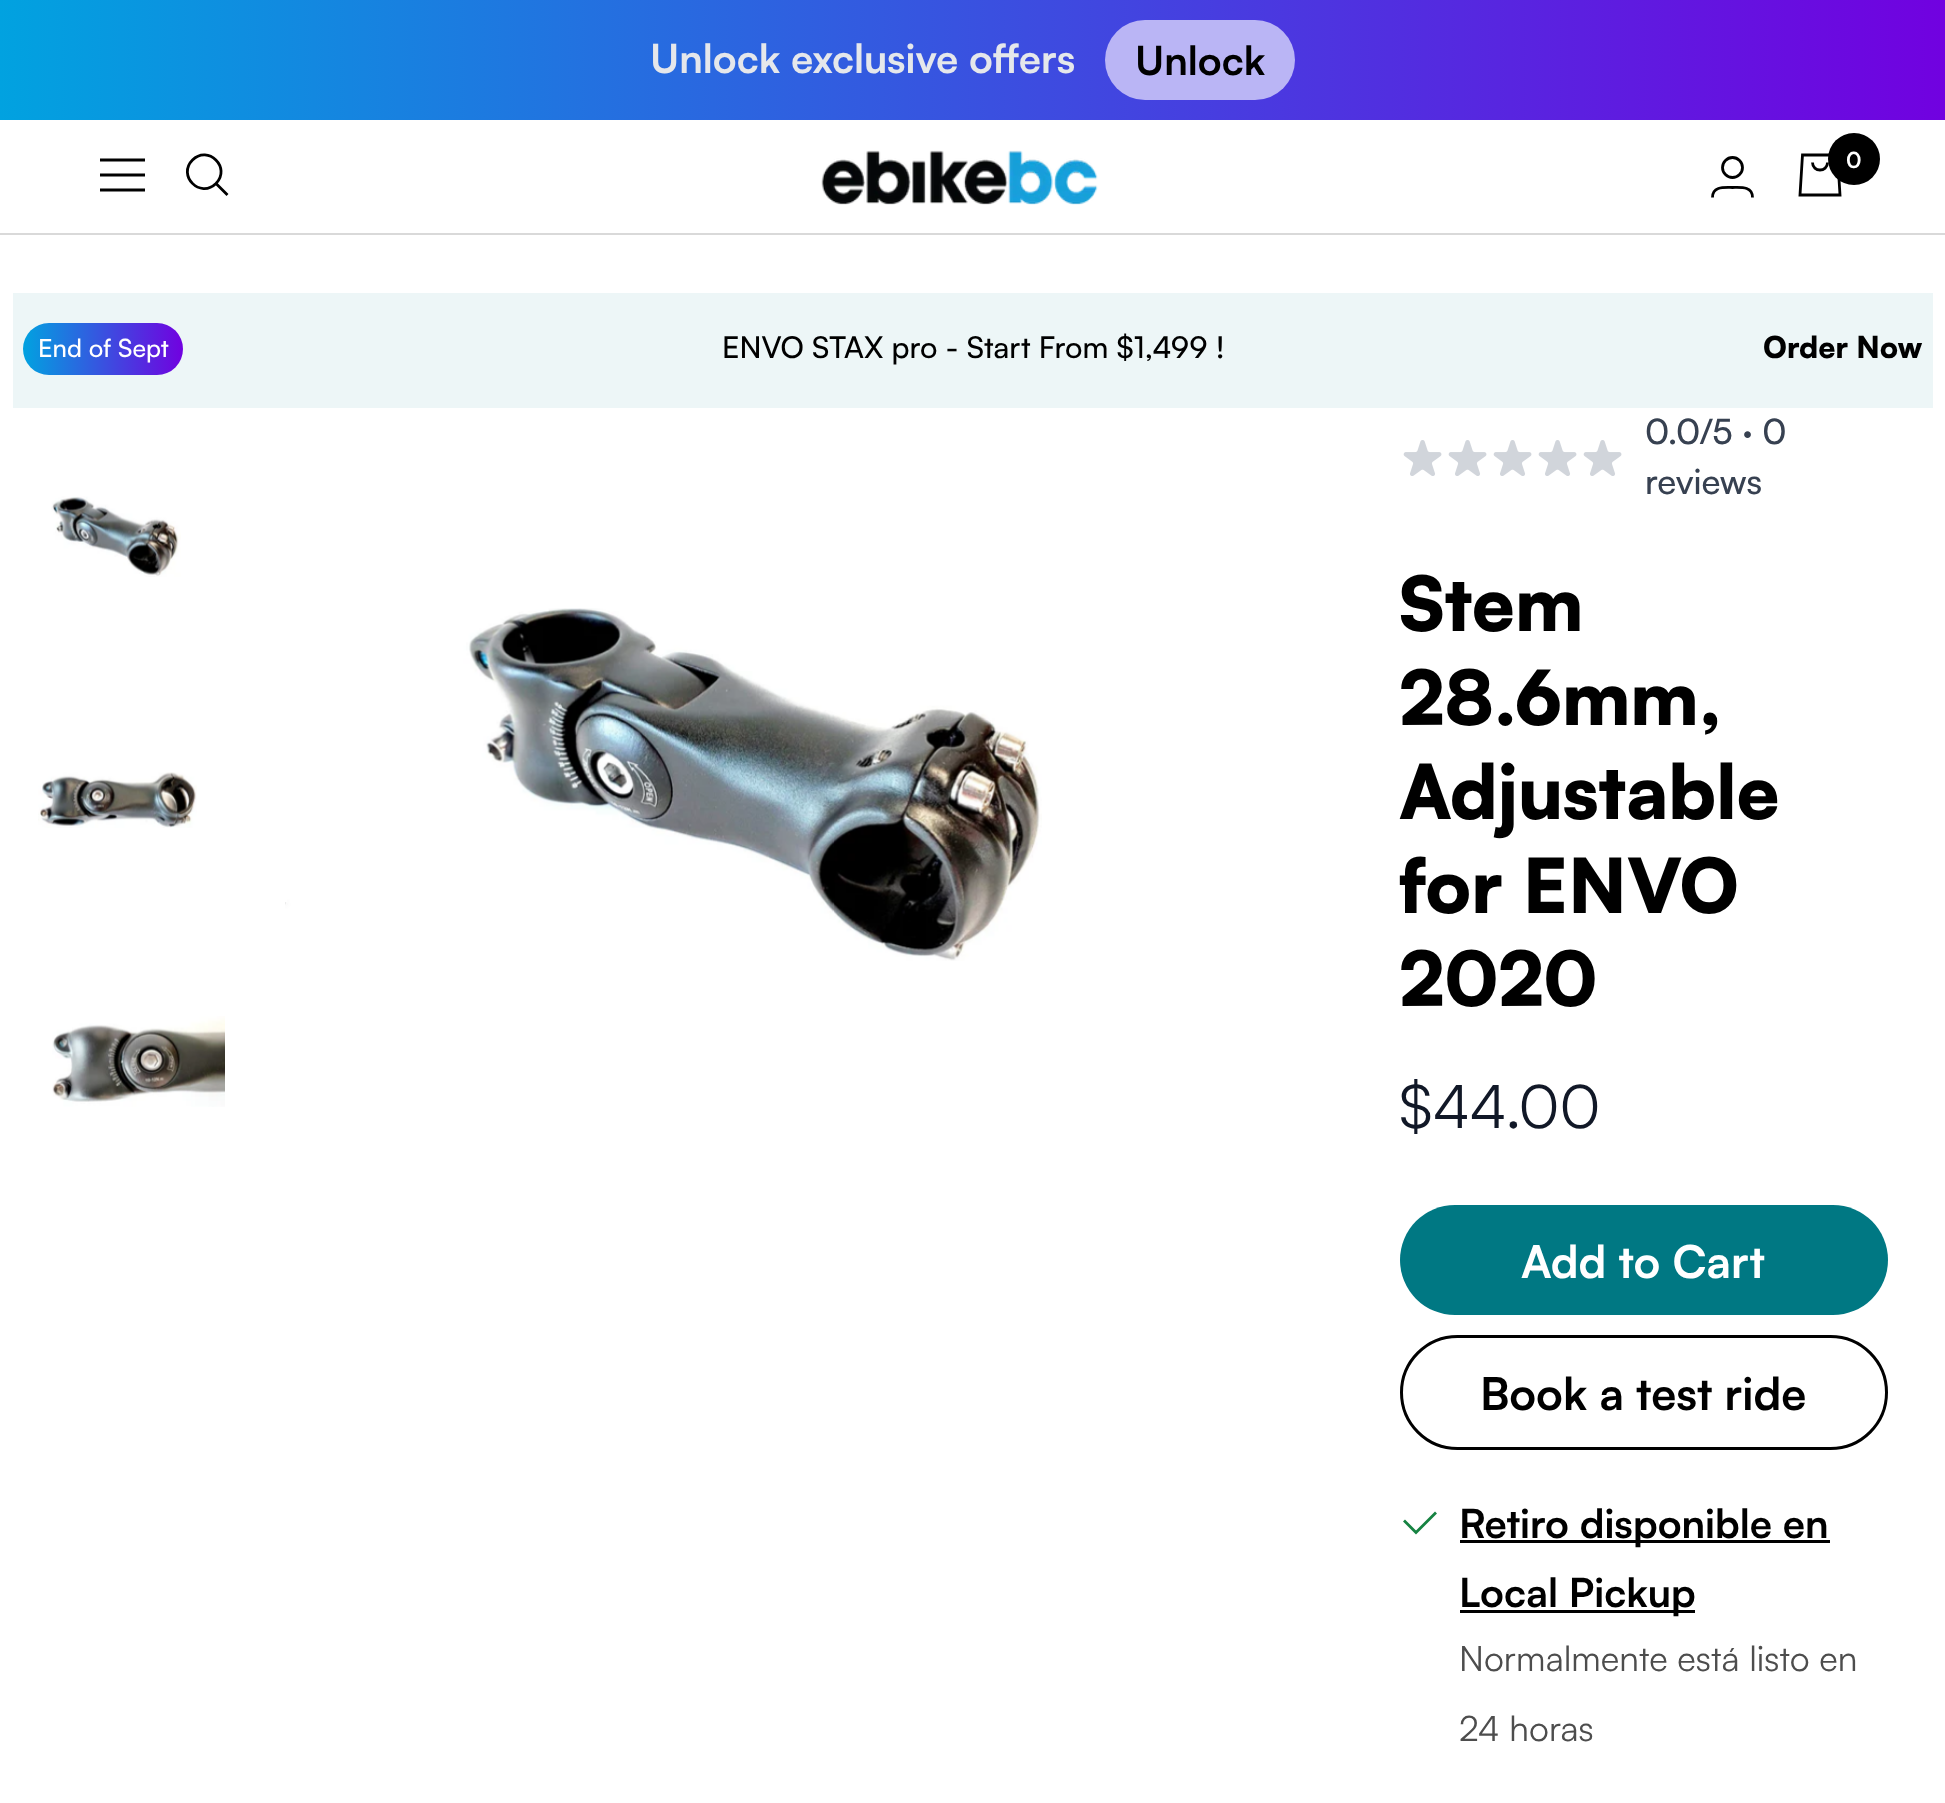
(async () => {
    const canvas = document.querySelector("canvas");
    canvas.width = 1945;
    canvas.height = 1803;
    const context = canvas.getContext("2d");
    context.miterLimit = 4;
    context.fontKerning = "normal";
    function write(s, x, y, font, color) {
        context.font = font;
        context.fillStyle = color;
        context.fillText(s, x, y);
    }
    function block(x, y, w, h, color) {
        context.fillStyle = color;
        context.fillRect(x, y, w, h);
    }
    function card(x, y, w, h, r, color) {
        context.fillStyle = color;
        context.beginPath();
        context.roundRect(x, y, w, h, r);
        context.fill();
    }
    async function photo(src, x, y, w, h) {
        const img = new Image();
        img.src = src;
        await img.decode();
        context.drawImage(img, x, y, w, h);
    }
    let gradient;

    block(0, 0, 1945, 1803, "rgb(255, 255, 255)");
    gradient = context.createLinearGradient(0, 60, 1945, 60);
    gradient.addColorStop(0, "rgb(1, 162, 224)");
    gradient.addColorStop(1, "rgb(113, 1, 224)");
    context.fillStyle = gradient;
    context.fillRect(0, 0, 1945, 120);
    write("Unlock exclusive offers", 650, 73, "bold 40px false", "rgb(229, 231, 235)");
    card(1105, 20, 190, 80, 40, "rgb(186, 181, 245)");
    write("Unlock", 1135, 75, "bold 40px false", "rgb(0, 0, 0)");
    block(0, 233, 1945, 2, "rgb(217, 217, 217)");
    context.beginPath();
    context.moveTo(100, 160);
    context.lineTo(145, 160);
    context.moveTo(100, 190);
    context.lineTo(145, 190);
    context.closePath();
    context.moveTo(100, 175);
    context.lineTo(145, 175);
    context.closePath();
    context.strokeStyle = "rgb(0, 0, 0)";
    context.lineWidth = 2.8;
    context.stroke();
    context.beginPath();
    context.moveTo(216, 183.5);
    context.bezierCurveTo(231.5, 167.5, 208, 144.5, 192.5, 160);
    context.bezierCurveTo(177, 175.5, 200, 199, 216, 183.5);
    context.closePath();
    context.moveTo(216, 183.5);
    context.lineTo(227.5, 195);
    context.stroke();
    await photo("media/1.png", 821, 150, 277, 55);
    context.beginPath();
    context.arc(1732.5, 167.5, 10, 0, Math.PI * 2);
    context.stroke();
    context.beginPath();
    context.moveTo(1712.5, 197.5);
    context.bezierCurveTo(1712.5, 186, 1724.5, 187.5, 1732.5, 187.5);
    context.bezierCurveTo(1740.5, 187.5, 1752.5, 186, 1752.5, 197.5);
    context.stroke();
    context.beginPath();
    context.moveTo(1802.5, 155);
    context.lineTo(1837.5, 155);
    context.lineTo(1840, 195);
    context.lineTo(1800, 195);
    context.closePath();
    context.moveTo(1812.5, 162.5);
    context.bezierCurveTo(1812.5, 172.5, 1827.5, 172.5, 1827.5, 162.5);
    context.stroke();
    context.fillStyle = "rgb(0, 0, 0)";
    context.beginPath();
    context.arc(1854, 159, 26, 0, Math.PI * 2);
    context.fill();
    write("0", 1846, 168, "bold 22px false", "rgb(255, 255, 255)");
    block(13, 293, 1920, 115, "rgb(237, 246, 247)");
    gradient = context.createLinearGradient(23, 349, 183, 349);
    gradient.addColorStop(0, "rgb(1, 162, 224)");
    gradient.addColorStop(1, "rgb(113, 1, 224)");
    context.fillStyle = gradient;
    context.beginPath();
    context.roundRect(23, 323, 160, 52, 26);
    context.fill();
    write("End of Sept", 38, 357, "500 25px Satoshi", "rgb(255, 255, 255)");
    write("ENVO STAX pro - Start From $1,499 !", 722, 358, "500 30px Satoshi", "rgb(0, 0, 0)");
    write("Order Now", 1763, 358, "900 30px Satoshi", "rgb(0, 0, 0)");
    await photo("media/2.png", 51, 496, 130, 81);
    await photo("media/3.png", 38, 772, 159, 56);
    await photo("media/4.png", 52, 1016, 173, 91);
    await photo("media/5.png", 285, 608, 757, 353);
    await photo("media/6.png", 1403, 440, 39, 36);
    await photo("media/6.png", 1448, 440, 39, 36);
    await photo("media/6.png", 1493, 440, 39, 36);
    await photo("media/6.png", 1538, 440, 39, 36);
    await photo("media/6.png", 1583, 440, 39, 36);
    write("0.0/5 · 0", 1645, 444, "500 35px Satoshi", "rgb(55, 65, 81)");
    write("reviews", 1645, 494, "500 35px Satoshi", "rgb(55, 65, 81)");
    write("Stem", 1399, 631, "900 75px Satoshi", "rgb(0, 0, 0)");
    write("28.6mm,", 1399, 725, "900 75px Satoshi", "rgb(0, 0, 0)");
    write("Adjustable", 1399, 819, "900 75px Satoshi", "rgb(0, 0, 0)");
    write("for ENVO", 1399, 913, "900 75px Satoshi", "rgb(0, 0, 0)");
    write("2020", 1399, 1006, "900 75px Satoshi", "rgb(0, 0, 0)");
    write("$44.00", 1399, 1128, "60px false", "rgb(17, 24, 39)");
    card(1400, 1205, 488, 110, 55, "rgb(0, 120, 131)");
    write("Add to Cart", 1521, 1278, "bold 45px false", "rgb(255, 255, 255)");
    context.beginPath();
    context.roundRect(1401.5, 1336.5, 485, 112, 56);
    context.lineWidth = 3;
    context.stroke();
    write("Book a test ride", 1480, 1410, "bold 45px false", "rgb(0, 0, 0)");
    context.beginPath();
    context.moveTo(1404, 1520.5);
    context.lineTo(1416, 1532.5);
    context.lineTo(1436, 1512.5);
    context.strokeStyle = "rgb(22, 131, 66)";
    context.lineWidth = 2.8;
    context.stroke();
    block(1460, 1540, 370, 3, "rgb(0, 0, 0)");
    write("Retiro disponible en", 1459, 1538, "bold 40px false", "rgb(0, 0, 0)");
    block(1460, 1610, 235, 3, "rgb(0, 0, 0)");
    write("Local Pickup", 1459, 1607, "bold 40px false", "rgb(0, 0, 0)");
    write("Normalmente está listo en", 1459, 1671, "35px false", "rgb(77, 77, 77)");
    write("24 horas", 1459, 1741, "35px false", "rgb(77, 77, 77)");
})();
